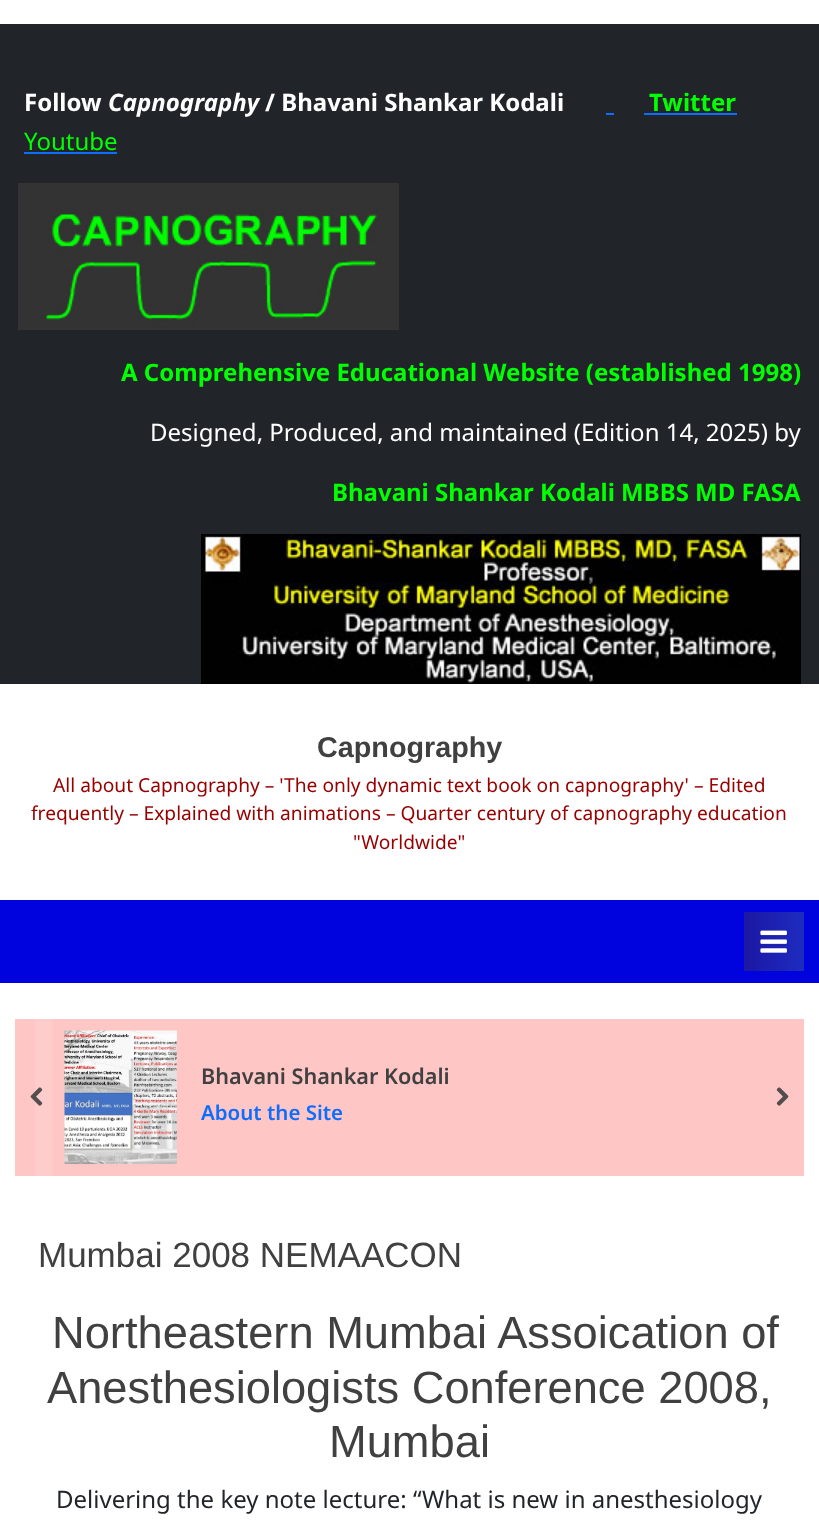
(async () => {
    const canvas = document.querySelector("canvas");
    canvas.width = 819;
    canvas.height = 1520;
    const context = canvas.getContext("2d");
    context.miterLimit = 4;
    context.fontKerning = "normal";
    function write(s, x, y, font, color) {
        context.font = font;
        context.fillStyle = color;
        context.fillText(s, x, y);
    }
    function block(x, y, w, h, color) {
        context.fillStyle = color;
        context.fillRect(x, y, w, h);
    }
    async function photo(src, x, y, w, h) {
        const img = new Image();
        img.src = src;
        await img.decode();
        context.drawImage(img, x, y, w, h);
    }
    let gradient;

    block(0, 0, 819, 1520, "rgb(255, 255, 255)");
    block(35, 1019, 18, 157, "rgb(255, 204, 204)");
    block(0, 24, 819, 660, "rgb(33, 37, 41)");
    write("Follow", 24, 111, "bold 24px Noto Sans", "rgb(255, 255, 255)");
    write("Capnography", 108, 111, "italic bold 24px Noto Sans", "rgb(255, 255, 255)");
    write("/ Bhavani Shankar Kodali", 265, 111, "bold 24px Noto Sans", "rgb(255, 255, 255)");
    write("Twitter", 649, 111, "bold 24px Noto Sans", "rgb(0, 255, 0)");
    block(606, 113, 8, 2, "rgb(13, 110, 253)");
    block(644, 113, 93, 2, "rgb(13, 110, 253)");
    write("Youtube", 24, 150, "24px Noto Sans", "rgb(0, 255, 0)");
    block(24, 152, 93, 2, "rgb(13, 110, 253)");
    await photo("media/1.png", 18, 183, 381, 147);
    write("A Comprehensive Educational Website (established 1998)", 121, 381, "bold 24px Noto Sans", "rgb(0, 255, 0)");
    write("Designed, Produced, and maintained (Edition 14, 2025) by", 150, 441, "24px Noto Sans", "rgb(255, 255, 255)");
    write("Bhavani Shankar Kodali MBBS MD FASA", 332, 501, "bold 24px Noto Sans", "rgb(0, 255, 0)");
    await photo("media/2.png", 201, 534, 600, 150);
    write("Capnography", 317, 757, "bold 28.75px Liberation Sans", "rgb(64, 64, 64)");
    write("All about Capnography – 'The only dynamic text book on capnography' – Edited", 53, 792, "19.2px Noto Sans", "rgb(150, 1, 1)");
    write("frequently – Explained with animations – Quarter century of capnography education", 31, 820, "19.2px Noto Sans", "rgb(150, 1, 1)");
    write("\"Worldwide\"", 353, 849, "19.2px Noto Sans", "rgb(150, 1, 1)");
    block(0, 900, 819, 83, "rgb(0, 3, 221)");
    gradient = context.createLinearGradient(639, 941, 747, 941);
    gradient.addColorStop(0, "rgb(27, 24, 165)");
    gradient.addColorStop(0.51, "rgb(30, 43, 191)");
    gradient.addColorStop(1, "rgb(27, 24, 165)");
    context.fillStyle = gradient;
    context.fillRect(744, 912, 3, 59);
    gradient = context.createLinearGradient(747, 941, 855, 941);
    gradient.addColorStop(0, "rgb(27, 24, 165)");
    gradient.addColorStop(0.51, "rgb(30, 43, 191)");
    gradient.addColorStop(1, "rgb(27, 24, 165)");
    context.fillStyle = gradient;
    context.fillRect(747, 912, 57, 59);
    await photo("media/3.png", 760, 930, 27, 23);
    block(15, 1019, 20, 157, "rgb(255, 198, 198)");
    block(53, 1019, 751, 157, "rgb(255, 198, 198)");
    await photo("media/4.png", 64, 1030, 113, 134);
    write("Bhavani Shankar Kodali", 201, 1084, "600 21.6px Noto Sans", "rgb(64, 64, 64)");
    write("About the Site", 201, 1120, "600 20.5px Noto Sans", "rgb(13, 110, 253)");
    await photo("media/5.png", 30, 1087, 13, 19);
    await photo("media/6.png", 776, 1087, 13, 19);
    write("Mumbai 2008 NEMAACON", 38, 1267, "35px Liberation Sans", "rgb(64, 64, 64)");
    write("Northeastern Mumbai Assoication of", 52, 1348, "45.25px Liberation Sans", "rgb(64, 64, 64)");
    write("Anesthesiologists Conference 2008,", 47, 1403, "45.25px Liberation Sans", "rgb(64, 64, 64)");
    write("Mumbai", 329, 1457, "45.25px Liberation Sans", "rgb(64, 64, 64)");
    write("Delivering the key note lecture: “What is new in anesthesiology", 56, 1508, "24px Noto Sans", "rgb(33, 37, 41)");
})();
